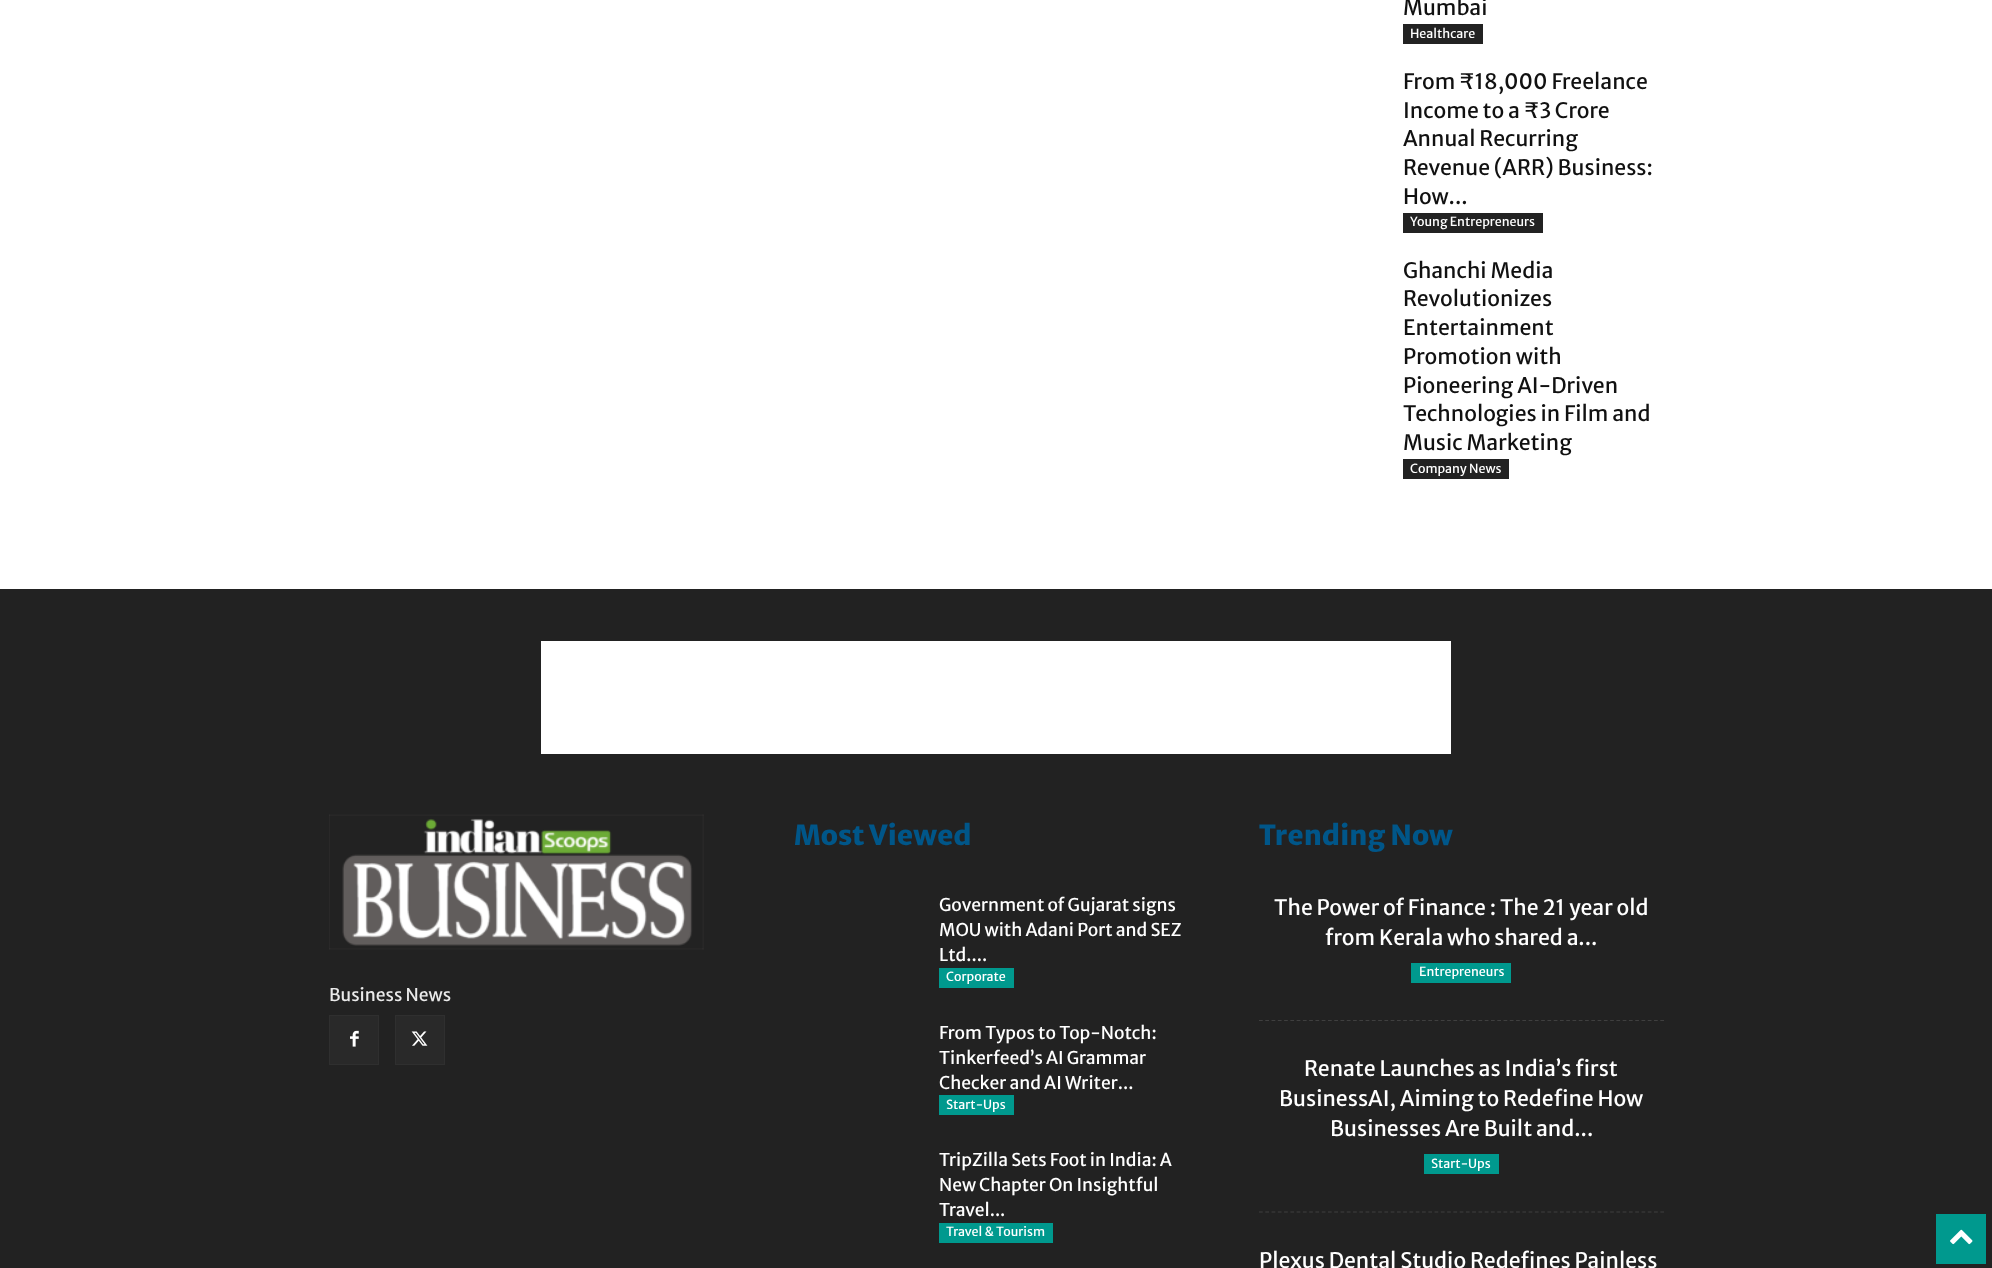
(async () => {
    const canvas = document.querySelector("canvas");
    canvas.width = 1992;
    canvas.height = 1268;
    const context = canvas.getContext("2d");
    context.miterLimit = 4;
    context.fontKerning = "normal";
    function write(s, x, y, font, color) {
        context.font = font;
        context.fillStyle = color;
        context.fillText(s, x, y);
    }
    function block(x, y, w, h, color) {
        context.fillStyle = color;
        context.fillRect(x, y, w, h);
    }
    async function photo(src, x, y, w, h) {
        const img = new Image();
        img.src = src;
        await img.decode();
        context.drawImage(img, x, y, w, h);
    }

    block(0, 0, 1992, 1268, "rgb(255, 255, 255)");
    write("Mumbai", 1403, 15, "21.25px Merriweather Sans", "rgb(17, 17, 17)");
    block(1403, 24, 80, 20, "rgb(34, 34, 34)");
    write("Healthcare", 1410, 38, "12.5px Merriweather Sans", "rgb(255, 255, 255)");
    write("From ₹18,000 Freelance", 1403, 89, "21.25px Merriweather Sans", "rgb(17, 17, 17)");
    write("Income to a ₹3 Crore", 1403, 118, "21.25px Merriweather Sans", "rgb(17, 17, 17)");
    write("Annual Recurring", 1403, 146, "21.25px Merriweather Sans", "rgb(17, 17, 17)");
    write("Revenue (ARR) Business:", 1403, 175, "21.25px Merriweather Sans", "rgb(17, 17, 17)");
    write("How...", 1403, 204, "21.25px Merriweather Sans", "rgb(17, 17, 17)");
    block(1403, 213, 140, 20, "rgb(34, 34, 34)");
    write("Young Entrepreneurs", 1410, 226, "12.5px Merriweather Sans", "rgb(255, 255, 255)");
    write("Ghanchi Media", 1403, 278, "21.25px Merriweather Sans", "rgb(17, 17, 17)");
    write("Revolutionizes", 1403, 306, "21.25px Merriweather Sans", "rgb(17, 17, 17)");
    write("Entertainment", 1403, 335, "21.25px Merriweather Sans", "rgb(17, 17, 17)");
    write("Promotion with", 1403, 364, "21.25px Merriweather Sans", "rgb(17, 17, 17)");
    write("Pioneering AI-Driven", 1403, 393, "21.25px Merriweather Sans", "rgb(17, 17, 17)");
    write("Technologies in Film and", 1403, 421, "21.25px Merriweather Sans", "rgb(17, 17, 17)");
    write("Music Marketing", 1403, 450, "21.25px Merriweather Sans", "rgb(17, 17, 17)");
    block(1403, 459, 106, 20, "rgb(34, 34, 34)");
    write("Company News", 1410, 473, "12.5px Merriweather Sans", "rgb(255, 255, 255)");
    block(0, 589, 1992, 679, "rgb(34, 34, 34)");
    block(541, 641, 910, 113, "rgb(255, 255, 255)");
    await photo("media/1.png", 329, 814, 375, 136);
    write("Business News", 329, 1001, "17.5px Merriweather Sans", "rgb(234, 234, 234)");
    block(330, 1016, 48, 48, "rgb(41, 41, 41)");
    await photo("media/2.png", 350, 1030, 9, 17);
    context.strokeStyle = "rgb(47, 47, 47)";
    context.strokeRect(329.5, 1015.5, 49, 49);
    block(396, 1016, 48, 48, "rgb(41, 41, 41)");
    await photo("media/3.png", 411, 1031, 17, 15);
    context.strokeRect(395.5, 1015.5, 49, 49);
    write("Most Viewed", 794, 845, "800 27.5px Merriweather Sans", "rgb(0, 86, 137)");
    write("Government of Gujarat signs", 939, 911, "17.5px Merriweather Sans", "rgb(255, 255, 255)");
    write("MOU with Adani Port and SEZ", 939, 936, "17.5px Merriweather Sans", "rgb(255, 255, 255)");
    write("Ltd....", 939, 961, "17.5px Merriweather Sans", "rgb(255, 255, 255)");
    block(939, 968, 75, 20, "rgb(0, 153, 142)");
    write("Corporate", 946, 981, "12.5px Merriweather Sans", "rgb(255, 255, 255)");
    write("From Typos to Top-Notch:", 939, 1039, "17.5px Merriweather Sans", "rgb(255, 255, 255)");
    write("Tinkerfeed’s AI Grammar", 939, 1064, "17.5px Merriweather Sans", "rgb(255, 255, 255)");
    write("Checker and AI Writer...", 939, 1089, "17.5px Merriweather Sans", "rgb(255, 255, 255)");
    block(939, 1095, 75, 20, "rgb(0, 153, 142)");
    write("Start-Ups", 946, 1109, "12.5px Merriweather Sans", "rgb(255, 255, 255)");
    write("TripZilla Sets Foot in India: A", 939, 1166, "17.5px Merriweather Sans", "rgb(255, 255, 255)");
    write("New Chapter On Insightful", 939, 1191, "17.5px Merriweather Sans", "rgb(255, 255, 255)");
    write("Travel...", 939, 1216, "17.5px Merriweather Sans", "rgb(255, 255, 255)");
    block(939, 1223, 114, 20, "rgb(0, 153, 142)");
    write("Travel & Tourism", 946, 1236, "12.5px Merriweather Sans", "rgb(255, 255, 255)");
    write("Trending Now", 1259, 845, "800 27.5px Merriweather Sans", "rgb(0, 86, 137)");
    context.beginPath();
    context.moveTo(1259, 1020.5);
    context.lineTo(1664, 1020.5);
    context.strokeStyle = "rgb(63, 63, 63)";
    context.lineWidth = 1.2;
    context.setLineDash([3.75, 2.52]);
    context.stroke();
    write("The Power of Finance : The 21 year old", 1274, 915, "21.25px Merriweather Sans", "rgb(255, 255, 255)");
    write("from Kerala who shared a...", 1325, 945, "21.25px Merriweather Sans", "rgb(255, 255, 255)");
    block(1411, 963, 100, 20, "rgb(0, 153, 142)");
    write("Entrepreneurs", 1419, 976, "12.5px Merriweather Sans", "rgb(255, 255, 255)");
    context.beginPath();
    context.moveTo(1259, 1212);
    context.lineTo(1664, 1212);
    context.stroke();
    write("Renate Launches as India’s first", 1304, 1076, "21.25px Merriweather Sans", "rgb(255, 255, 255)");
    write("BusinessAI, Aiming to Redefine How", 1279, 1106, "21.25px Merriweather Sans", "rgb(255, 255, 255)");
    write("Businesses Are Built and...", 1330, 1136, "21.25px Merriweather Sans", "rgb(255, 255, 255)");
    block(1424, 1154, 75, 20, "rgb(0, 153, 142)");
    write("Start-Ups", 1431, 1168, "12.5px Merriweather Sans", "rgb(255, 255, 255)");
    write("Plexus Dental Studio Redefines Painless", 1259, 1268, "21.25px Merriweather Sans", "rgb(255, 255, 255)");
    block(1936, 1214, 50, 50, "rgb(0, 153, 142)");
    await photo("media/4.png", 1950, 1229, 23, 16);
})();
